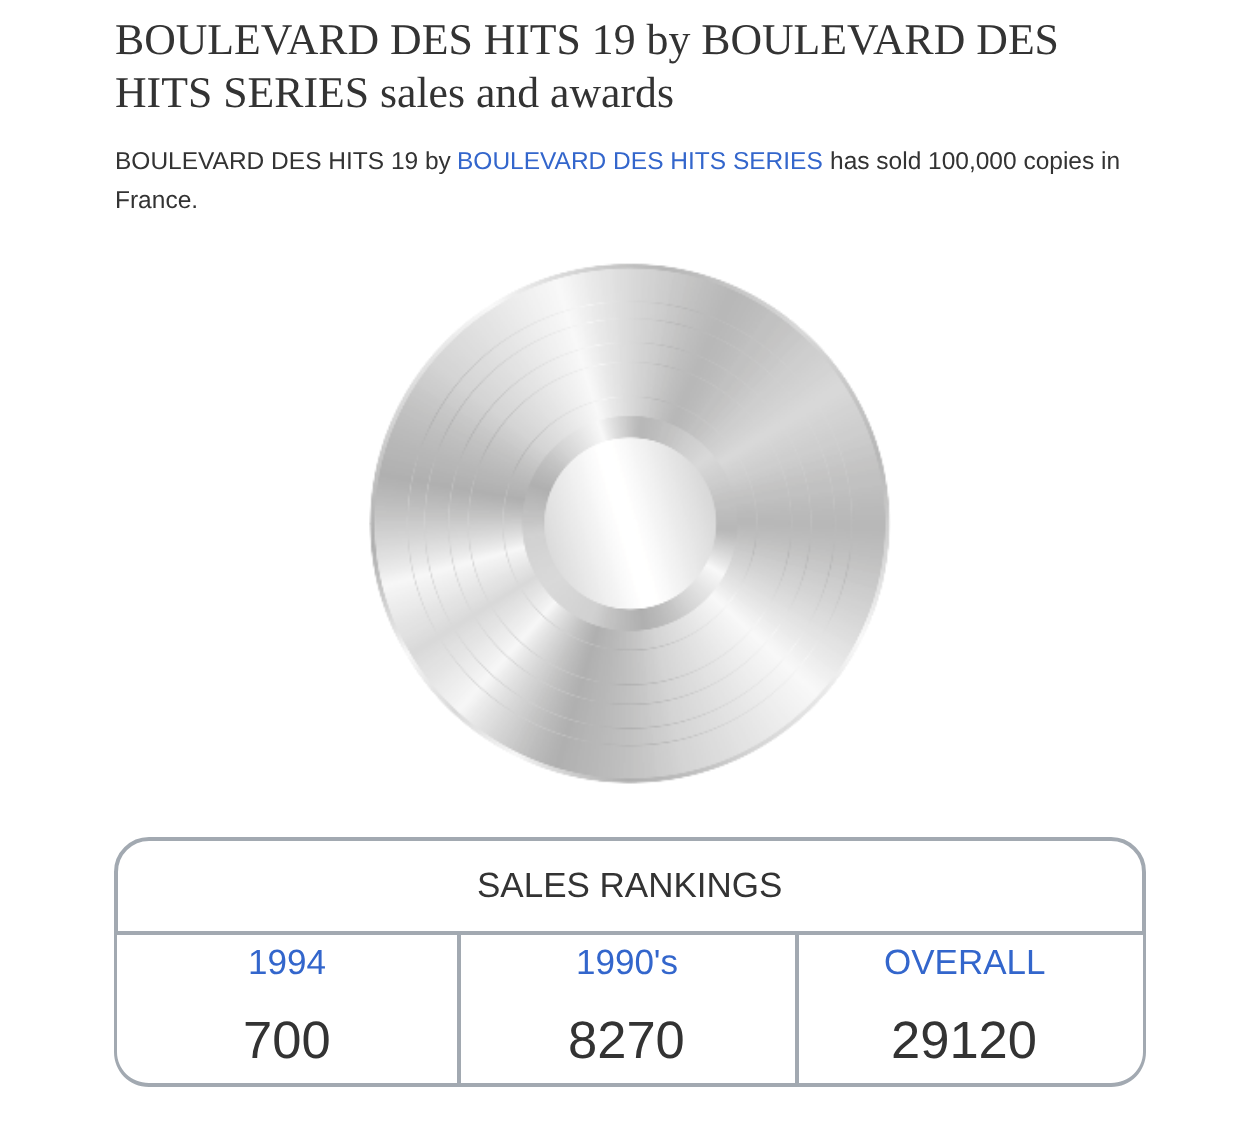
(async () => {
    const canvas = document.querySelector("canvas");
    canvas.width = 1260;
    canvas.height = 1139;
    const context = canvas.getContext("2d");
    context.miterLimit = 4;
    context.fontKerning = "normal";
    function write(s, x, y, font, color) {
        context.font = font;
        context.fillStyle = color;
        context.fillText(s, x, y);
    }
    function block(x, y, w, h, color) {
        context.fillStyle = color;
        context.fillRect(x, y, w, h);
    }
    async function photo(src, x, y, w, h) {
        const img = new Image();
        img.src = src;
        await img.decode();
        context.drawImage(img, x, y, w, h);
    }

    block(0, 0, 1260, 1139, "rgb(255, 255, 255)");
    write("BOULEVARD DES HITS 19 by BOULEVARD DES", 115, 54, "43.75px Liberation Serif", "rgb(51, 51, 51)");
    write("HITS SERIES sales and awards", 115, 107, "43.75px Liberation Serif", "rgb(51, 51, 51)");
    write("BOULEVARD DES HITS 19 by", 115, 169, "24.5px Liberation Sans", "rgb(51, 51, 51)");
    write("BOULEVARD DES HITS SERIES", 457, 169, "24.5px Liberation Sans", "rgb(51, 102, 204)");
    write("has sold 100,000 copies in", 830, 169, "24.5px Liberation Sans", "rgb(51, 51, 51)");
    write("France.", 115, 208, "24.5px Liberation Sans", "rgb(51, 51, 51)");
    await photo("media/1.png", 369, 263, 522, 521);
    context.beginPath();
    context.roundRect(116, 839, 1028, 94, [33, 33, 0, 0]);
    context.strokeStyle = "rgb(162, 169, 177)";
    context.lineWidth = 4;
    context.stroke();
    write("SALES RANKINGS", 477, 897, "35px Liberation Sans", "rgb(51, 51, 51)");
    context.fillStyle = "rgb(162, 169, 177)";
    context.beginPath();
    context.moveTo(114, 934);
    context.lineTo(1146, 934);
    context.lineTo(1146, 1052);
    context.bezierCurveTo(1146, 1071, 1131, 1087, 1111, 1087);
    context.lineTo(149, 1087);
    context.bezierCurveTo(129, 1087, 114, 1071, 114, 1052);
    context.closePath();
    context.moveTo(117, 934);
    context.lineTo(1143, 934);
    context.lineTo(1143, 1052);
    context.bezierCurveTo(1143, 1069, 1129, 1083, 1111, 1083);
    context.lineTo(149, 1083);
    context.bezierCurveTo(131, 1083, 117, 1069, 117, 1052);
    context.closePath();
    context.fill("evenodd");
    write("1994", 248, 974, "35px Liberation Sans", "rgb(51, 102, 204)");
    write("700", 243, 1058, "52.5px Liberation Sans", "rgb(51, 51, 51)");
    block(457, 935, 4, 148, "rgb(162, 169, 177)");
    write("1990's", 576, 974, "35px Liberation Sans", "rgb(51, 102, 204)");
    write("8270", 568, 1058, "52.5px Liberation Sans", "rgb(51, 51, 51)");
    block(795, 935, 4, 148, "rgb(162, 169, 177)");
    write("OVERALL", 884, 974, "35px Liberation Sans", "rgb(51, 102, 204)");
    write("29120", 891, 1058, "52.5px Liberation Sans", "rgb(51, 51, 51)");
})();
